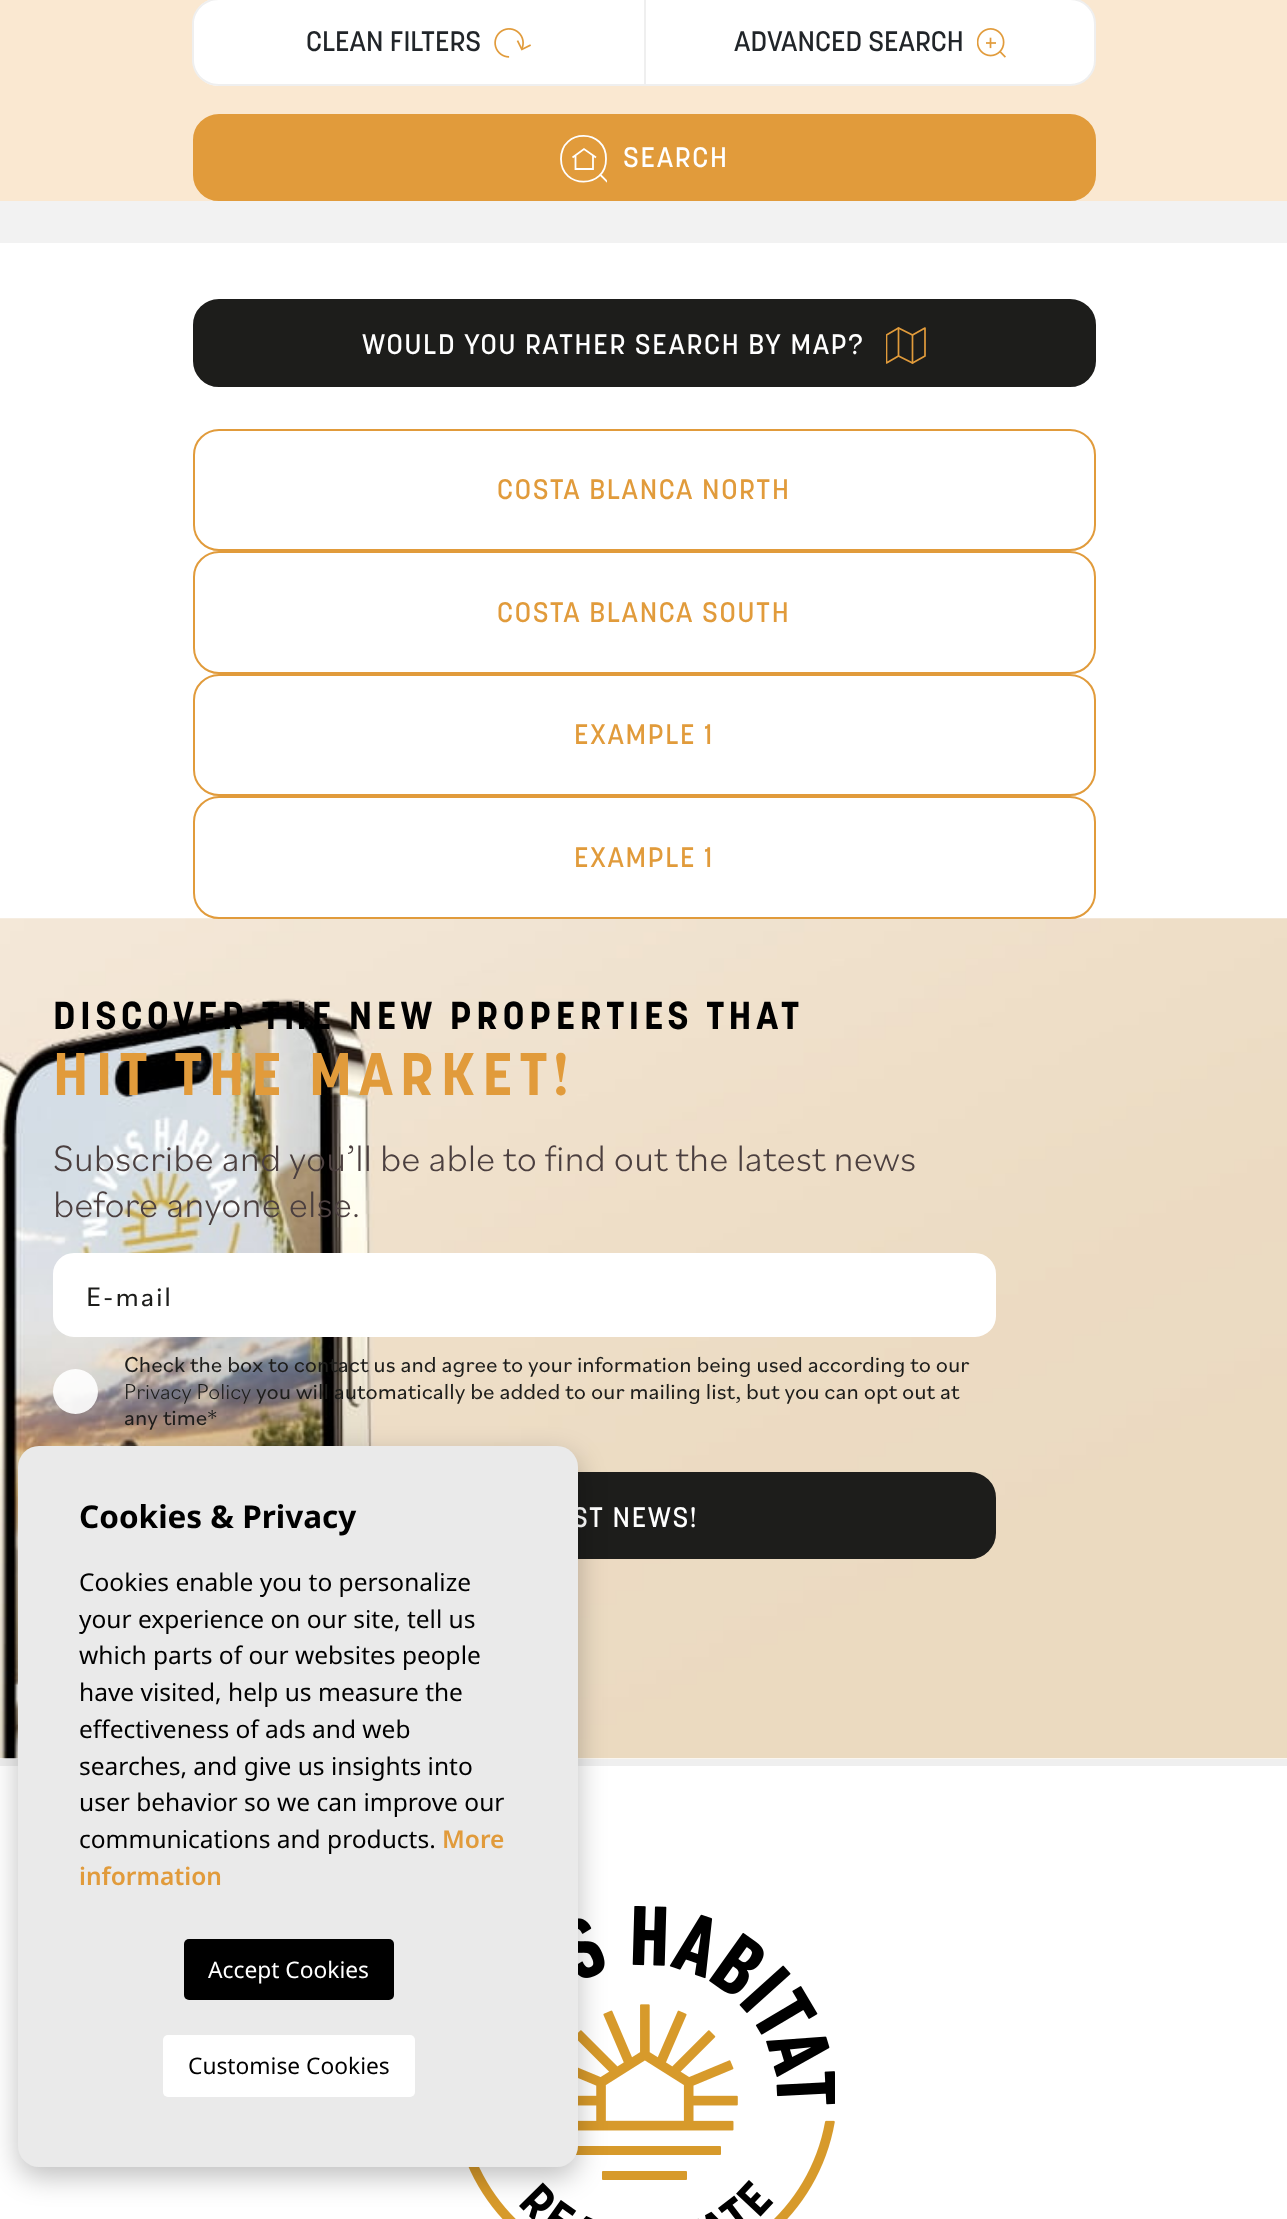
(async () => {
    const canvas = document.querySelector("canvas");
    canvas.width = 1287;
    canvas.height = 2219;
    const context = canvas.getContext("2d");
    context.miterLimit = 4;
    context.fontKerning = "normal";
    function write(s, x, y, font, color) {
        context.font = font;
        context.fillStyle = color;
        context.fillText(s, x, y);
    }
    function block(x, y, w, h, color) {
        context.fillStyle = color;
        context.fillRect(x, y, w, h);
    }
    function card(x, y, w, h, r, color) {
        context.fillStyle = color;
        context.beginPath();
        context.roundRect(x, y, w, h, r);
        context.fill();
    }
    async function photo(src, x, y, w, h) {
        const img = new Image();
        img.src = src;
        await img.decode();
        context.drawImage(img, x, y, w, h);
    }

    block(0, 0, 1287, 2219, "rgb(255, 255, 255)");
    block(0, 201, 1287, 42, "rgb(242, 242, 242)");
    block(0, 0, 1287, 201, "rgb(250, 232, 209)");
    context.fillStyle = "rgb(255, 255, 255)";
    context.beginPath();
    context.moveTo(219, -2);
    context.lineTo(644, -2);
    context.lineTo(644, 86);
    context.lineTo(219, 86);
    context.bezierCurveTo(204.5, 86, 193, 74.5, 193, 60);
    context.lineTo(193, 24);
    context.bezierCurveTo(193, 9.5, 204.5, -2, 219, -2);
    context.closePath();
    context.fill();
    context.fillStyle = "rgb(239, 239, 239)";
    context.beginPath();
    context.moveTo(219, -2);
    context.lineTo(644, -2);
    context.lineTo(644, 86);
    context.lineTo(219, 86);
    context.bezierCurveTo(204, 86, 192, 74, 192, 60);
    context.lineTo(192, 24);
    context.bezierCurveTo(192, 10, 204, -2, 219, -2);
    context.closePath();
    context.moveTo(219, 0);
    context.lineTo(644, 0);
    context.lineTo(644, 84);
    context.lineTo(219, 84);
    context.bezierCurveTo(205, 84, 194, 73, 194, 60);
    context.lineTo(194, 24);
    context.bezierCurveTo(194, 11, 205, 0, 219, 0);
    context.closePath();
    context.fill("evenodd");
    write("CLEAN FILTERS", 306, 51, "500 28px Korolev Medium", "rgb(33, 37, 41)");
    await photo("media/1.png", 494, 28, 37, 30);
    context.fillStyle = "rgb(255, 255, 255)";
    context.beginPath();
    context.moveTo(645, -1);
    context.lineTo(1070, -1);
    context.bezierCurveTo(1084, -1, 1095, 10, 1095, 24);
    context.lineTo(1095, 60);
    context.bezierCurveTo(1095, 74, 1084, 85, 1070, 85);
    context.lineTo(645, 85);
    context.closePath();
    context.fill();
    context.strokeStyle = "rgb(239, 239, 239)";
    context.lineWidth = 2;
    context.stroke();
    write("ADVANCED SEARCH", 734, 51, "500 28px Korolev Medium", "rgb(33, 37, 41)");
    await photo("media/2.png", 977, 28, 29, 30);
    context.fillStyle = "rgb(225, 155, 59)";
    context.beginPath();
    context.roundRect(194, 115, 901, 85, 25);
    context.fill();
    context.strokeStyle = "rgb(225, 155, 59)";
    context.stroke();
    context.beginPath();
    context.moveTo(606, 159);
    context.bezierCurveTo(606.5, 189, 561, 189.5, 561, 159);
    context.bezierCurveTo(561, 128, 606.5, 128.5, 606, 159);
    context.closePath();
    context.strokeStyle = "rgb(255, 255, 255)";
    context.lineWidth = 1.8;
    context.stroke();
    context.letterSpacing = "1.7px";
    write("SEARCH", 623, 167, "500 28px Korolev Medium", "rgb(255, 255, 255)");
    context.beginPath();
    context.moveTo(593, 155.5);
    context.lineTo(593, 169);
    context.lineTo(575.5, 169);
    context.lineTo(575.5, 155.5);
    context.moveTo(596, 157.5);
    context.lineTo(584, 149);
    context.lineTo(572.5, 157.5);
    context.stroke();
    context.save();
    context.beginPath();
    context.rect(560, 135, 47, 49);
    context.clip();
    context.beginPath();
    context.moveTo(608.5, 183);
    context.lineTo(600, 174.5);
    context.lineJoin = "round";
    context.stroke();
    context.restore();
    context.fillStyle = "rgb(29, 29, 27)";
    context.beginPath();
    context.roundRect(194, 300, 901, 86, 25);
    context.fill();
    context.strokeStyle = "rgb(29, 29, 27)";
    context.lineWidth = 2;
    context.stroke();
    context.save();
    context.beginPath();
    context.rect(886, 327, 40, 37);
    context.clip();
    context.beginPath();
    context.moveTo(886.5, 335);
    context.lineTo(886.5, 363);
    context.lineTo(898.5, 356);
    context.lineTo(912.5, 363);
    context.lineTo(925, 356);
    context.lineTo(925, 328);
    context.lineTo(912.5, 335);
    context.lineTo(898.5, 328);
    context.closePath();
    context.strokeStyle = "rgb(225, 155, 59)";
    context.lineWidth = 1.7;
    context.lineCap = "round";
    context.lineJoin = "round";
    context.stroke();
    context.restore();
    write("WOULD YOU RATHER SEARCH BY MAP?", 362, 354, "500 28px Korolev Medium", "rgb(255, 255, 255)");
    context.beginPath();
    context.moveTo(898.5, 328);
    context.lineTo(898.5, 356);
    context.moveTo(912.5, 335);
    context.lineTo(912.5, 363);
    context.strokeStyle = "rgb(225, 155, 59)";
    context.lineWidth = 1.7;
    context.lineCap = "round";
    context.lineJoin = "round";
    context.stroke();
    context.beginPath();
    context.roundRect(194, 430, 901, 120, 25);
    context.lineWidth = 2;
    context.lineJoin = "miter";
    context.stroke();
    write("COSTA BLANCA NORTH", 497, 499, "500 28px Korolev Medium", "rgb(225, 155, 59)");
    context.beginPath();
    context.roundRect(194, 552, 901, 121, 25);
    context.stroke();
    write("COSTA BLANCA SOUTH", 497, 622, "500 28px Korolev Medium", "rgb(225, 155, 59)");
    context.beginPath();
    context.roundRect(194, 675, 901, 120, 25);
    context.stroke();
    write("EXAMPLE 1", 574, 744, "500 28px Korolev Medium", "rgb(225, 155, 59)");
    await photo("media/3.png", 0, 918, 1287, 841);
    context.beginPath();
    context.roundRect(194, 797, 901, 121, 25);
    context.stroke();
    write("EXAMPLE 1", 574, 867, "500 28px Korolev Medium", "rgb(225, 155, 59)");
    context.letterSpacing = "4.6px";
    write("DISCOVER THE NEW PROPERTIES THAT", 53, 1029, "bold 38.5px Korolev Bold", "rgb(0, 0, 0)");
    context.letterSpacing = "7.1px";
    write("HIT THE MARKET!", 53, 1095, "bold 59.5px Korolev Bold", "rgb(225, 155, 59)");
    context.letterSpacing = "0px";
    write("Subscribe and you’ll be able to find out the latest news", 53, 1171, "300 38.5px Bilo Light", "rgb(75, 63, 63)");
    write("before anyone else.", 53, 1217, "300 38.5px Bilo Light", "rgb(75, 63, 63)");
    context.fillStyle = "rgb(255, 255, 255)";
    context.beginPath();
    context.roundRect(54, 1254, 941, 82, 20);
    context.fill();
    context.strokeStyle = "rgb(255, 255, 255)";
    context.stroke();
    context.letterSpacing = "1.7px";
    write("E-mail", 86, 1306, "28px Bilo", "rgb(29, 29, 27)");
    context.letterSpacing = "0px";
    write("Check the box to contact us and agree to your information being used according to our", 124, 1372, "22.75px Bilo", "rgb(29, 29, 27)");
    context.fillStyle = "rgba(255, 255, 255, 0.9)";
    context.beginPath();
    context.arc(75.5, 1391.5, 22.5, 0, Math.PI * 2);
    context.fill();
    write("Privacy Policy", 124, 1399, "300 22.75px Bilo Light", "rgb(29, 29, 27)");
    write("you will automatically be added to our mailing list, but you can opt out at", 256, 1399, "22.75px Bilo", "rgb(29, 29, 27)");
    write("any time*", 124, 1425, "22.75px Bilo", "rgb(29, 29, 27)");
    context.beginPath();
    context.roundRect(54, 1473, 941, 85, 25);
    context.fill();
    context.strokeStyle = "rgb(29, 29, 27)";
    context.stroke();
    context.letterSpacing = "1.7px";
    write("ST NEWS!", 572, 1527, "500 28px Korolev Medium", "rgb(255, 255, 255)");
    block(0, 1759, 1287, 7, "rgb(239, 239, 239)");
    await photo("media/4.png", 468, 1906, 367, 313);
    context.fillStyle = "rgba(0, 0, 0, 0.25)";
    context.filter = "blur(14px)";
    context.beginPath();
    context.roundRect(18, 1456, 560, 721, 21);
    context.fill();
    context.filter = "none";
    card(18, 1446, 560, 721, 21, "rgb(234, 234, 234)");
    context.letterSpacing = "0px";
    write("Cookies & Privacy", 79, 1528, "bold 31.5px Noto Sans", "rgb(0, 0, 0)");
    write("Cookies enable you to personalize", 79, 1591, "24.5px Noto Sans", "rgb(0, 0, 0)");
    write("your experience on our site, tell us", 79, 1628, "24.5px Noto Sans", "rgb(0, 0, 0)");
    write("which parts of our websites people", 79, 1664, "24.5px Noto Sans", "rgb(0, 0, 0)");
    write("have visited, help us measure the", 79, 1701, "24.5px Noto Sans", "rgb(0, 0, 0)");
    write("effectiveness of ads and web", 79, 1738, "24.5px Noto Sans", "rgb(0, 0, 0)");
    write("searches, and give us insights into", 79, 1775, "24.5px Noto Sans", "rgb(0, 0, 0)");
    write("user behavior so we can improve our", 79, 1811, "24.5px Noto Sans", "rgb(0, 0, 0)");
    write("communications and products.", 79, 1848, "24.5px Noto Sans", "rgb(0, 0, 0)");
    write("More", 442, 1848, "600 24.5px Noto Sans", "rgb(225, 155, 59)");
    write("information", 79, 1885, "600 24.5px Noto Sans", "rgb(225, 155, 59)");
    card(184, 1939, 210, 61, 5, "rgb(0, 0, 0)");
    write("Accept Cookies", 208, 1978, "22.75px Noto Sans", "rgb(255, 255, 255)");
    card(163, 2035, 252, 62, 5, "rgb(255, 255, 255)");
    write("Customise Cookies", 188, 2074, "22.75px Noto Sans", "rgb(0, 0, 0)");
})();
